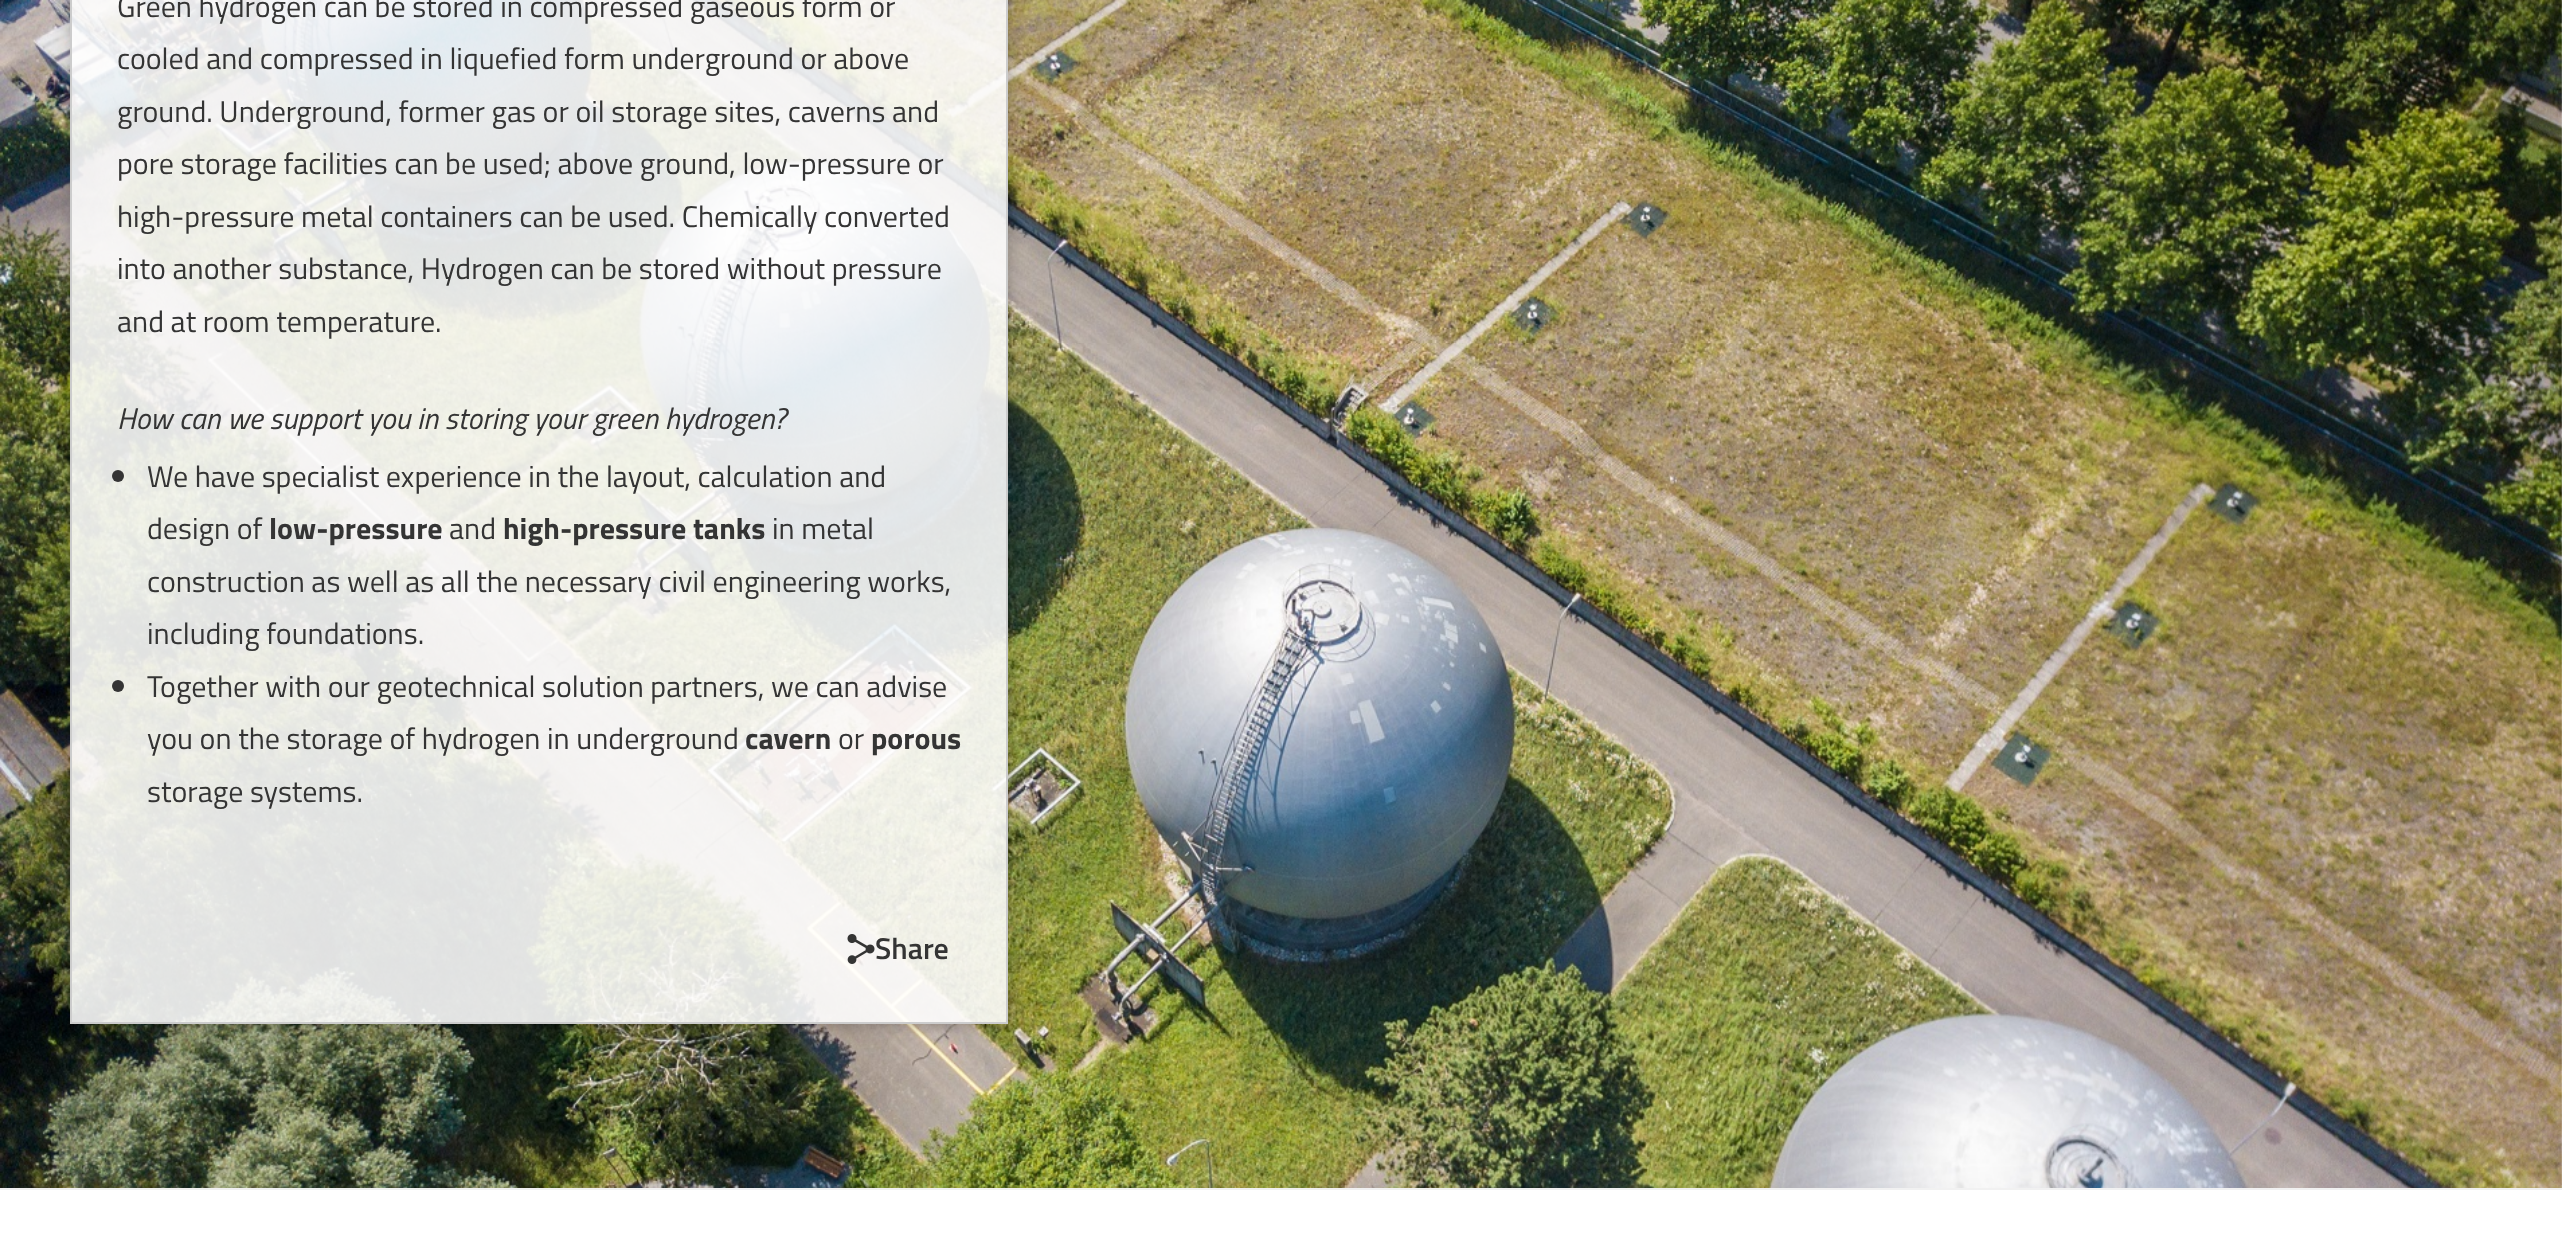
(async () => {
    const canvas = document.querySelector("canvas");
    canvas.width = 2562;
    canvas.height = 1245;
    const context = canvas.getContext("2d");
    context.miterLimit = 4;
    context.fontKerning = "normal";
    function write(s, x, y, font, color) {
        context.font = font;
        context.fillStyle = color;
        context.fillText(s, x, y);
    }
    function block(x, y, w, h, color) {
        context.fillStyle = color;
        context.fillRect(x, y, w, h);
    }
    async function photo(src, x, y, w, h) {
        const img = new Image();
        img.src = src;
        await img.decode();
        context.drawImage(img, x, y, w, h);
    }

    block(0, 0, 2562, 1245, "rgb(255, 255, 255)");
    await photo("media/1.png", 0, 0, 2562, 1188);
    context.save();
    context.beginPath();
    context.moveTo(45, 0);
    context.lineTo(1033, 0);
    context.lineTo(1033, 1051);
    context.lineTo(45, 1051);
    context.closePath();
    context.moveTo(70, -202);
    context.lineTo(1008, -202);
    context.lineTo(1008, 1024);
    context.lineTo(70, 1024);
    context.closePath();
    context.clip("evenodd");
    context.fillStyle = "rgba(0, 0, 0, 0.25)";
    context.filter = "blur(8px)";
    context.beginPath();
    context.rect(70, -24, 938, 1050);
    context.fill();
    context.filter = "none";
    context.restore();
    context.fillStyle = "rgba(255, 255, 255, 0.88)";
    context.beginPath();
    context.rect(71, -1, 936, 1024);
    context.fill();
    context.strokeStyle = "rgb(204, 204, 204)";
    context.lineWidth = 2;
    context.stroke();
    write("Green hydrogen can be stored in compressed gaseous form or", 117, 17, "30px Titillium Web", "rgb(52, 52, 52)");
    write("cooled and compressed in liquefied form underground or above", 117, 69, "30px Titillium Web", "rgb(52, 52, 52)");
    write("ground. Underground, former gas or oil storage sites, caverns and", 117, 122, "30px Titillium Web", "rgb(52, 52, 52)");
    write("pore storage facilities can be used; above ground, low-pressure or", 117, 174, "30px Titillium Web", "rgb(52, 52, 52)");
    write("high-pressure metal containers can be used. Chemically converted", 117, 227, "30px Titillium Web", "rgb(52, 52, 52)");
    write("into another substance, Hydrogen can be stored without pressure", 117, 279, "30px Titillium Web", "rgb(52, 52, 52)");
    write("and at room temperature.", 117, 332, "30px Titillium Web", "rgb(52, 52, 52)");
    write("How can we support you in storing your green hydrogen?", 117, 429, "italic 30px Titillium Web", "rgb(52, 52, 52)");
    context.beginPath();
    context.arc(118, 476, 6, 0, Math.PI * 2);
    context.fill();
    write("We have specialist experience in the layout, calculation and", 147, 487, "30px Titillium Web", "rgb(52, 52, 52)");
    write("design of", 147, 539, "30px Titillium Web", "rgb(52, 52, 52)");
    write("low-pressure", 269, 539, "bold 30px Titillium Web", "rgb(52, 52, 52)");
    write("and", 449, 539, "30px Titillium Web", "rgb(52, 52, 52)");
    write("high-pressure tanks", 503, 539, "bold 30px Titillium Web", "rgb(52, 52, 52)");
    write("in metal", 772, 539, "30px Titillium Web", "rgb(52, 52, 52)");
    write("construction as well as all the necessary civil engineering works,", 147, 592, "30px Titillium Web", "rgb(52, 52, 52)");
    write("including foundations.", 147, 644, "30px Titillium Web", "rgb(52, 52, 52)");
    context.beginPath();
    context.arc(118, 686, 6, 0, Math.PI * 2);
    context.fill();
    write("Together with our geotechnical solution partners, we can advise", 147, 697, "30px Titillium Web", "rgb(52, 52, 52)");
    write("you on the storage of hydrogen in underground", 147, 749, "30px Titillium Web", "rgb(52, 52, 52)");
    write("cavern", 745, 749, "bold 30px Titillium Web", "rgb(52, 52, 52)");
    write("or", 838, 749, "30px Titillium Web", "rgb(52, 52, 52)");
    write("porous", 871, 749, "bold 30px Titillium Web", "rgb(52, 52, 52)");
    write("storage systems.", 147, 802, "30px Titillium Web", "rgb(52, 52, 52)");
    await photo("media/2.png", 847, 934, 28, 30);
    write("Share", 875, 959, "600 30px Titillium Web", "rgb(52, 52, 52)");
    block(0, 1188, 2562, 2, "rgb(241, 241, 241)");
})();
